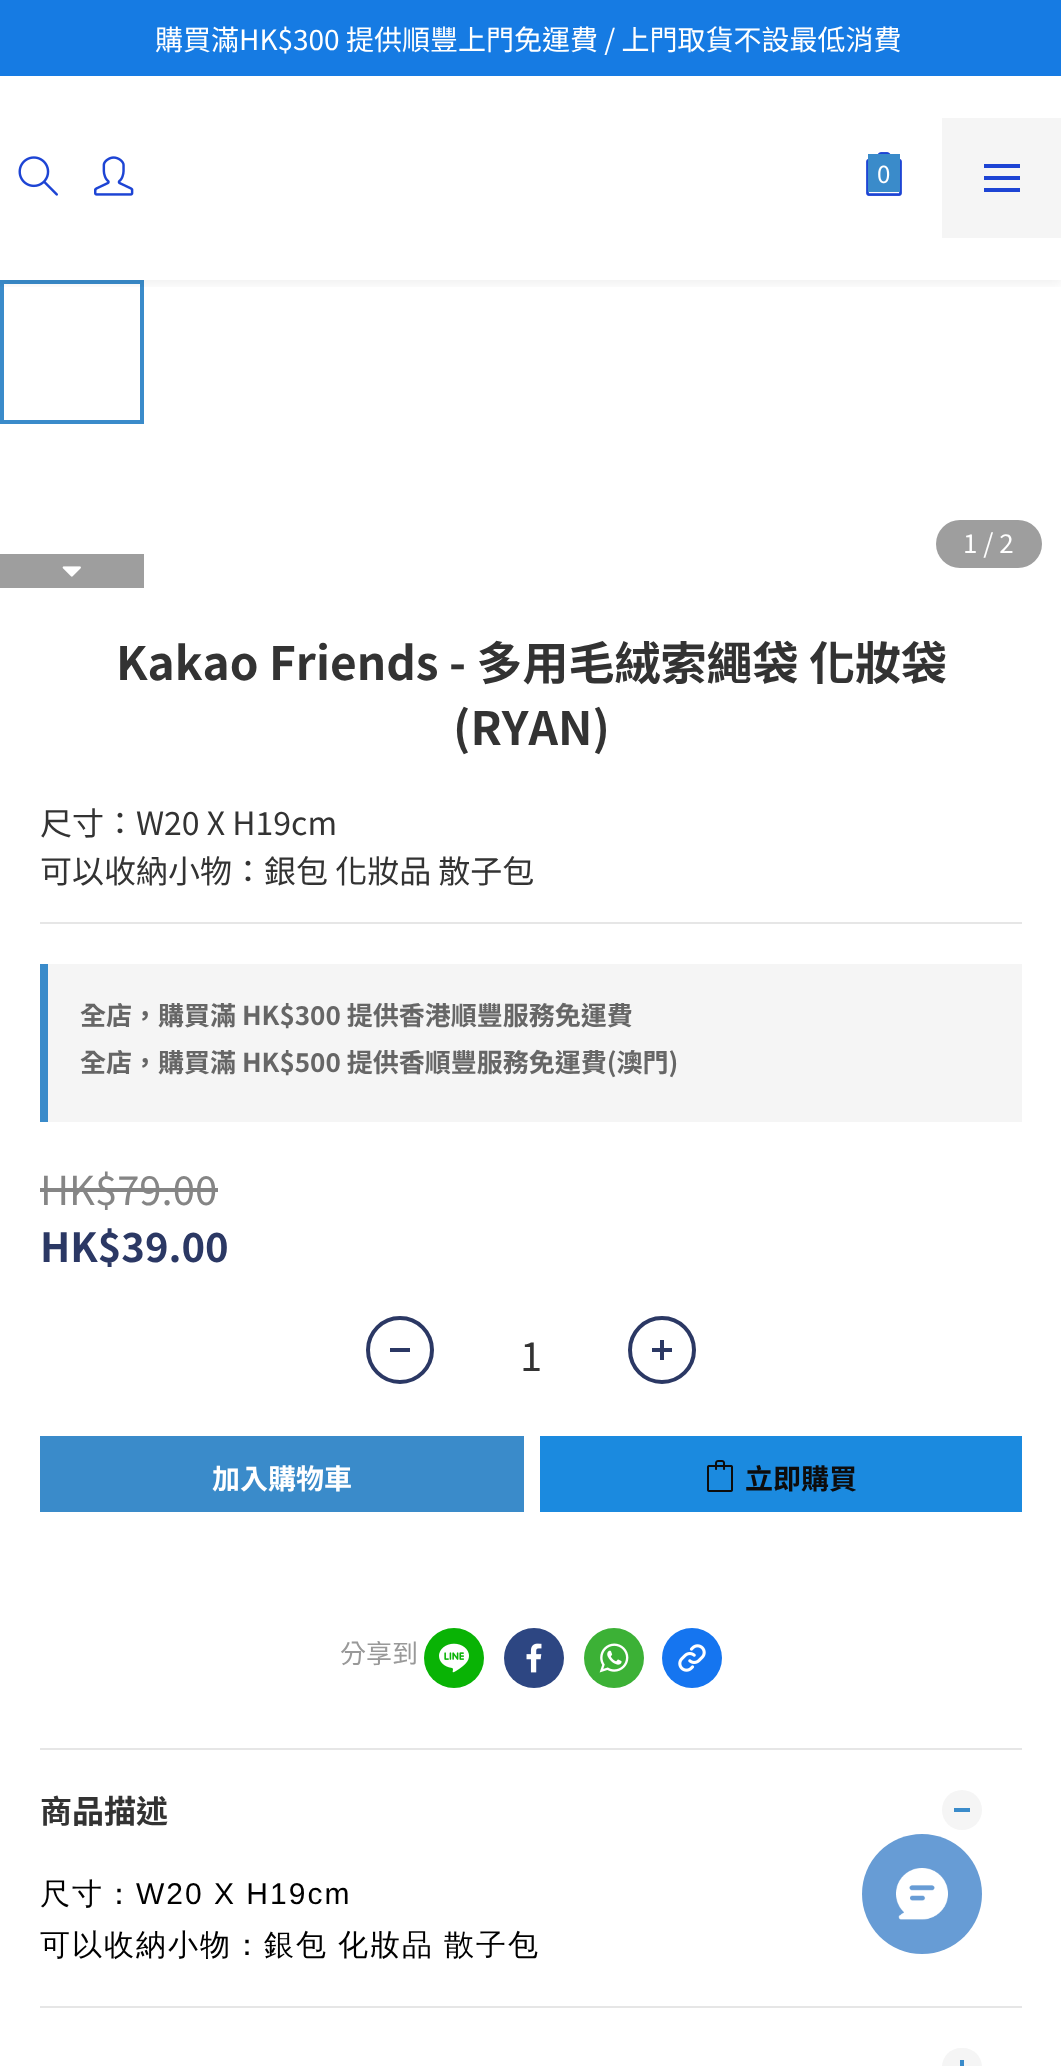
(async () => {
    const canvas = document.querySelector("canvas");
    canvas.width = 1061;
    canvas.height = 2066;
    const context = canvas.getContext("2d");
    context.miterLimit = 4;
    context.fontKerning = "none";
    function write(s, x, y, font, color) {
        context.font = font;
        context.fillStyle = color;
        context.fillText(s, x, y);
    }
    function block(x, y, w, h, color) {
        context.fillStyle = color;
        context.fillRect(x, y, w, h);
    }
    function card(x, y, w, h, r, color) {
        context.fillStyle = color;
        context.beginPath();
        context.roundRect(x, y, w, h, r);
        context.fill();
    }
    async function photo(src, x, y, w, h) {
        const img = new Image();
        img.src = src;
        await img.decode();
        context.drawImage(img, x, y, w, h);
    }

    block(0, 0, 1061, 2066, "rgb(255, 255, 255)");
    block(0, 0, 1061, 76, "rgb(22, 123, 227)");
    write("購買滿HK$300 提供順豐上門免運費 / 上門取貨不設最低消費", 155, 50, "28px Noto Sans TC", "rgb(255, 255, 255)");
    context.strokeStyle = "rgb(58, 139, 202)";
    context.lineWidth = 4;
    context.strokeRect(2, 282, 140, 140);
    context.save();
    context.beginPath();
    context.rect(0, 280, 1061, 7);
    context.clip();
    context.fillStyle = "rgba(0, 0, 0, 0.06)";
    context.filter = "blur(6px)";
    context.beginPath();
    context.rect(0, 80, 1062, 204);
    context.fill();
    context.filter = "none";
    context.restore();
    await photo("media/1.png", 18, 156, 40, 40);
    await photo("media/2.png", 94, 156, 40, 40);
    await photo("media/3.png", 866, 152, 36, 44);
    block(868, 154, 32, 38, "rgb(58, 139, 202)");
    write("0", 877, 183, "24px Noto Sans TC", "rgb(255, 255, 255)");
    block(942, 118, 119, 120, "rgb(245, 245, 245)");
    block(984, 176, 36, 4, "rgb(29, 68, 212)");
    block(984, 164, 36, 4, "rgb(29, 68, 212)");
    block(984, 188, 36, 4, "rgb(29, 68, 212)");
    block(0, 554, 144, 34, "rgb(158, 158, 158)");
    await photo("media/4.png", 62, 566, 19, 11);
    card(936, 520, 106, 48, 24, "rgb(158, 158, 158)");
    write("1 / 2", 963, 553, "26px Noto Sans TC", "rgb(255, 255, 255)");
    write("Kakao Friends - 多用毛絨索繩袋 化妝袋", 116, 680, "bold 46px Noto Sans TC", "rgb(51, 51, 51)");
    write("(RYAN)", 453, 745, "bold 46px Noto Sans TC", "rgb(51, 51, 51)");
    write("尺寸：W20 X H19cm", 40, 835, "32px Noto Sans TC", "rgb(51, 51, 51)");
    write("可以收納小物：銀包 化妝品 散子包", 40, 883, "32px Noto Sans TC", "rgb(51, 51, 51)");
    block(40, 922, 982, 2, "rgb(230, 230, 230)");
    block(48, 964, 974, 158, "rgb(245, 245, 245)");
    block(40, 964, 8, 158, "rgb(58, 139, 202)");
    write("全店，購買滿 HK$300 提供香港順豐服務免運費", 80, 1025, "bold 26px Noto Sans TC", "rgb(102, 102, 102)");
    write("全店，購買滿 HK$500 提供香順豐服務免運費(澳門)", 80, 1072, "bold 26px Noto Sans TC", "rgb(102, 102, 102)");
    write("HK$79.00", 40, 1205, "40px Noto Sans TC", "rgb(133, 133, 133)");
    block(40, 1188, 178, 4, "rgb(133, 133, 133)");
    write("HK$39.00", 40, 1262, "bold 40px Noto Sans TC", "rgb(43, 56, 100)");
    context.beginPath();
    context.arc(400, 1350, 32, 0, Math.PI * 2);
    context.strokeStyle = "rgb(43, 56, 100)";
    context.stroke();
    block(390, 1348, 20, 4, "rgb(43, 56, 100)");
    write("1", 520, 1371, "40px Noto Sans TC", "rgb(51, 51, 51)");
    context.beginPath();
    context.arc(662, 1350, 32, 0, Math.PI * 2);
    context.stroke();
    block(652, 1348, 20, 4, "rgb(43, 56, 100)");
    block(660, 1340, 4, 20, "rgb(43, 56, 100)");
    block(40, 1436, 484, 76, "rgb(58, 139, 202)");
    write("加入購物車", 212, 1489, "bold 28px Noto Sans TC", "rgb(255, 255, 255)");
    block(540, 1436, 482, 76, "rgb(27, 138, 223)");
    await photo("media/5.png", 707, 1460, 26, 32);
    write("立即購買", 745, 1489, "bold 28px Noto Sans TC", "rgb(13, 12, 12)");
    write("分享到", 340, 1663, "26px Noto Sans TC", "rgb(153, 153, 153)");
    context.fillStyle = "rgb(9, 179, 5)";
    context.beginPath();
    context.arc(454, 1658, 30, 0, Math.PI * 2);
    context.fill();
    await photo("media/6.png", 439, 1643, 30, 30);
    context.fillStyle = "rgb(45, 70, 130)";
    context.beginPath();
    context.arc(534, 1658, 30, 0, Math.PI * 2);
    context.fill();
    await photo("media/7.png", 526, 1643, 16, 30);
    context.fillStyle = "rgb(60, 177, 54)";
    context.beginPath();
    context.arc(614, 1658, 30, 0, Math.PI * 2);
    context.fill();
    await photo("media/8.png", 599, 1643, 30, 30);
    context.fillStyle = "rgb(21, 117, 240)";
    context.beginPath();
    context.arc(692, 1658, 30, 0, Math.PI * 2);
    context.fill();
    await photo("media/9.png", 678, 1644, 28, 28);
    block(40, 1748, 982, 2, "rgb(230, 230, 230)");
    write("商品描述", 40, 1823, "bold 32px Noto Sans TC", "rgb(51, 51, 51)");
    context.fillStyle = "rgb(245, 245, 245)";
    context.beginPath();
    context.arc(962, 1810, 20, 0, Math.PI * 2);
    context.fill();
    block(954, 1808, 16, 4, "rgb(58, 139, 202)");
    context.letterSpacing = "2px";
    write("尺寸：", 40, 1904, "500 30px WenQuanYi Zen Hei", "rgb(0, 0, 0)");
    write("W20 X H19cm", 136, 1904, "30px Liberation Sans", "rgb(0, 0, 0)");
    context.wordSpacing = "-1px";
    write("可以收納小物：銀包 化妝品 散子包", 40, 1955, "500 30px WenQuanYi Zen Hei", "rgb(0, 0, 0)");
    block(40, 2006, 982, 2, "rgb(230, 230, 230)");
    card(942, 2048, 40, 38, 20, "rgb(245, 245, 245)");
    block(960, 2060, 4, 6, "rgb(58, 139, 202)");
    context.fillStyle = "rgb(103, 156, 213)";
    context.beginPath();
    context.arc(922, 1894, 60, 0, Math.PI * 2);
    context.fill();
    await photo("media/10.png", 896, 1868, 52, 52);
})();
